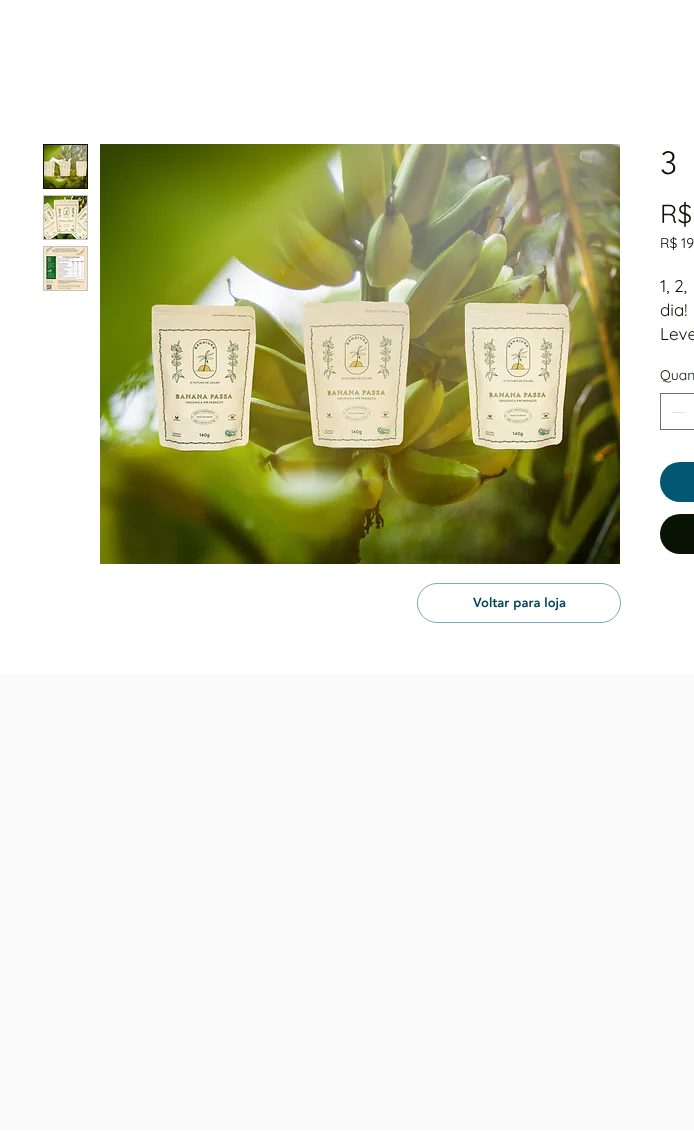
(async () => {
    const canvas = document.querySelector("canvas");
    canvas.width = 694;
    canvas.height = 1134;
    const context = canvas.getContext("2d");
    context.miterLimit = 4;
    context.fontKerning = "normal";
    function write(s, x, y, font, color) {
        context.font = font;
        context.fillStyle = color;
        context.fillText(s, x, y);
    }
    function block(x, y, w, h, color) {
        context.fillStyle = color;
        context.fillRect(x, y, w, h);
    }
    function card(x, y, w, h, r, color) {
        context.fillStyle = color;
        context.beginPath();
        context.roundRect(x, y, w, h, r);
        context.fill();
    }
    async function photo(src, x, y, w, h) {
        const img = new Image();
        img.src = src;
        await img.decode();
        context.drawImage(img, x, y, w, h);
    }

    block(0, 0, 694, 1134, "rgb(255, 255, 255)");
    context.strokeStyle = "rgb(9, 20, 5)";
    context.strokeRect(43.5, 144.5, 44, 44);
    await photo("media/1.png", 44, 145, 43, 43);
    block(43, 195, 45, 45, "rgb(194, 196, 193)");
    await photo("media/2.png", 44, 196, 43, 43);
    block(43, 246, 45, 45, "rgb(194, 196, 193)");
    await photo("media/3.png", 44, 247, 43, 43);
    await photo("media/4.png", 100, 144, 520, 420);
    write("3", 660, 174, "300 32px 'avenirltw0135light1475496'", "rgb(9, 20, 5)");
    write("R$", 660, 223, "26px Quicksand", "rgb(9, 20, 5)");
    write("R$ 19", 660, 248, "14px Quicksand", "rgb(0, 0, 0)");
    write("1, 2,", 660, 292, "17px Quicksand", "rgb(9, 20, 5)");
    write("dia!", 660, 316, "17px Quicksand", "rgb(9, 20, 5)");
    write("Leve", 660, 340, "17px Quicksand", "rgb(9, 20, 5)");
    write("Quan", 660, 380, "14px Quicksand", "rgb(9, 20, 5)");
    context.strokeStyle = "rgb(107, 114, 105)";
    context.strokeRect(660.5, 393.5, 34, 36);
    block(672, 412, 13, 1, "rgb(227, 227, 227)");
    card(660, 462, 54, 40, 20, "rgb(3, 87, 114)");
    card(660, 514, 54, 40, 20, "rgb(9, 20, 5)");
    context.beginPath();
    context.roundRect(417.5, 583.5, 203, 39, 19.5);
    context.strokeStyle = "rgb(125, 170, 185)";
    context.stroke();
    write("Voltar para loja", 473, 607, "900 13px 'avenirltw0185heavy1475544'", "rgb(3, 68, 89)");
    block(0, 674, 694, 457, "rgb(250, 250, 250)");
})();
